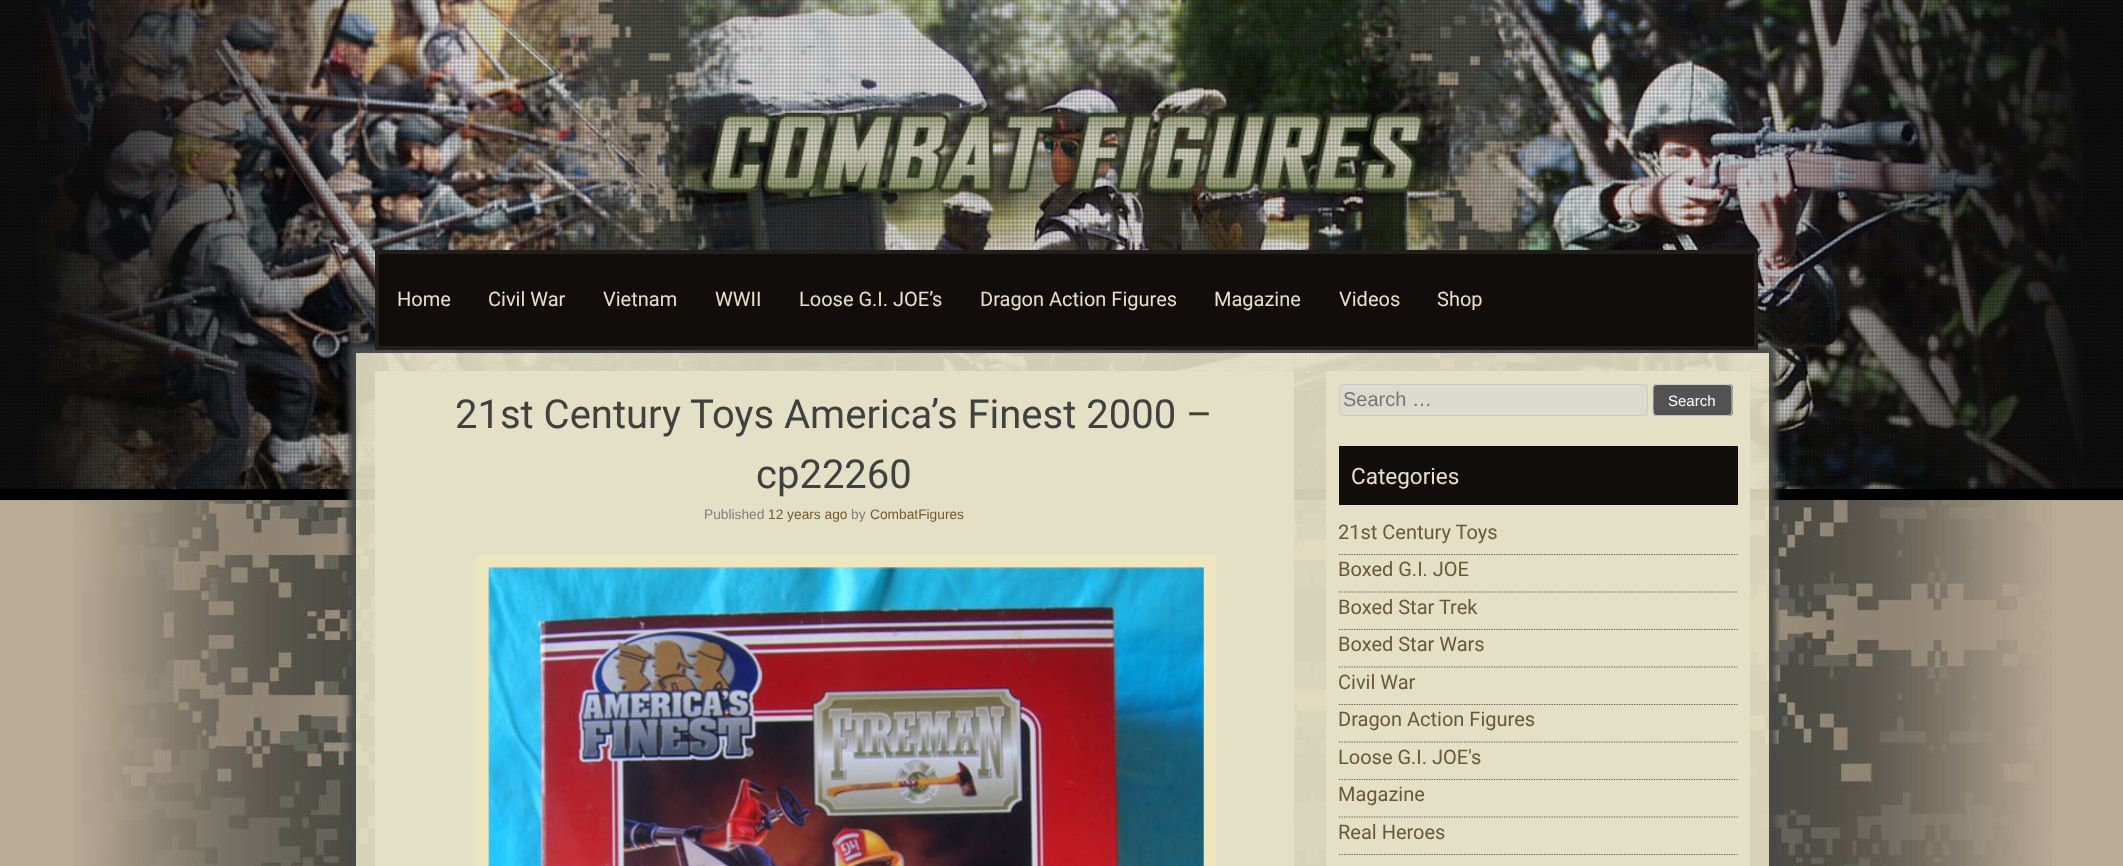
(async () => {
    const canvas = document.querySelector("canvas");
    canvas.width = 2123;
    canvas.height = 866;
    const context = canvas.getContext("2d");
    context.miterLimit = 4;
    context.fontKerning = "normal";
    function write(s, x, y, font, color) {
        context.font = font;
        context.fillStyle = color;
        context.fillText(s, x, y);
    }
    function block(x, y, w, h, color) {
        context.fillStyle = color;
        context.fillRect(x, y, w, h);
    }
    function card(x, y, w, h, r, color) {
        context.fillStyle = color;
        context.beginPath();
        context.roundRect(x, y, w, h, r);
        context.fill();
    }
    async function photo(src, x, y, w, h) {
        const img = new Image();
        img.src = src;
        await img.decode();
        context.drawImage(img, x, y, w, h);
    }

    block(0, 0, 2123, 866, "rgb(186, 171, 148)");
    await photo("media/1.png", 74, 500, 1978, 366);
    block(0, 0, 2123, 489, "rgb(17, 17, 17)");
    await photo("media/2.png", 37, 0, 2046, 489);
    await photo("media/3.png", 0, 0, 2123, 489);
    block(0, 489, 2123, 11, "rgb(0, 0, 0)");
    context.save();
    context.beginPath();
    context.moveTo(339, 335);
    context.lineTo(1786, 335);
    context.lineTo(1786, 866);
    context.lineTo(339, 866);
    context.closePath();
    context.moveTo(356, 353);
    context.lineTo(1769, 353);
    context.lineTo(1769, 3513);
    context.lineTo(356, 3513);
    context.closePath();
    context.clip("evenodd");
    context.fillStyle = "rgb(72, 74, 74)";
    context.filter = "blur(3px)";
    context.beginPath();
    context.rect(349, 345, 1427, 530);
    context.fill();
    context.filter = "none";
    context.restore();
    context.fillStyle = "rgb(16, 13, 10)";
    context.beginPath();
    context.rect(377, 252, 1379, 96);
    context.fill();
    context.strokeStyle = "rgb(33, 30, 27)";
    context.lineWidth = 4;
    context.stroke();
    write("Home", 397, 306, "20px Roboto", "rgb(231, 226, 197)");
    write("Civil War", 488, 306, "20px Roboto", "rgb(231, 226, 197)");
    write("Vietnam", 603, 306, "20px Roboto", "rgb(231, 226, 197)");
    write("WWII", 715, 306, "20px Roboto", "rgb(231, 226, 197)");
    write("Loose G.I. JOE’s", 799, 306, "20px Roboto", "rgb(231, 226, 197)");
    write("Dragon Action Figures", 980, 306, "20px Roboto", "rgb(231, 226, 197)");
    write("Magazine", 1214, 306, "20px Roboto", "rgb(231, 226, 197)");
    write("Videos", 1339, 306, "20px Roboto", "rgb(231, 226, 197)");
    write("Shop", 1437, 306, "20px Roboto", "rgb(231, 226, 197)");
    block(356, 353, 1413, 513, "rgba(230, 225, 196, 0.9)");
    block(375, 371, 919, 495, "rgb(228, 224, 198)");
    write("21st Century Toys America’s Finest 2000 –", 455, 428, "40px Roboto", "rgb(64, 64, 64)");
    write("cp22260", 756, 488, "40px Roboto", "rgb(64, 64, 64)");
    write("Published", 704, 519, "13.75px Liberation Sans", "rgb(128, 128, 128)");
    write("12 years ago", 768, 519, "13.75px Liberation Sans", "rgb(113, 90, 50)");
    write("by", 851, 519, "13.75px Liberation Sans", "rgb(128, 128, 128)");
    write("CombatFigures", 870, 519, "13.75px Liberation Sans", "rgb(113, 90, 50)");
    context.strokeStyle = "rgb(236, 229, 190)";
    context.lineWidth = 13;
    context.strokeRect(482.5, 561.5, 727, 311);
    await photo("media/4.png", 488, 567, 716, 299);
    block(1326, 371, 424, 495, "rgb(228, 224, 198)");
    context.fillStyle = "rgb(219, 218, 207)";
    context.beginPath();
    context.roundRect(1339.5, 384.5, 308, 31, 3.5);
    context.fill();
    context.strokeStyle = "rgb(204, 204, 204)";
    context.lineWidth = 1;
    context.stroke();
    write("Search …", 1343, 406, "20px Liberation Sans", "rgb(117, 117, 117)");
    card(1653, 384, 80, 32, 4, "rgb(82, 82, 82)");
    context.beginPath();
    context.moveTo(1731, 414.5);
    context.lineTo(1729, 415.5);
    context.lineTo(1656, 415.5);
    context.lineTo(1654, 414.5);
    context.strokeStyle = "rgb(187, 187, 187)";
    context.lineWidth = 1.2;
    context.stroke();
    context.beginPath();
    context.moveTo(1654, 414.5);
    context.bezierCurveTo(1652, 412.5, 1653, 403, 1653, 400);
    context.bezierCurveTo(1653, 382, 1650, 384.5, 1668.5, 384.5);
    context.lineTo(1716.5, 384.5);
    context.bezierCurveTo(1735, 384.5, 1732, 382, 1732, 400);
    context.bezierCurveTo(1732, 403, 1733, 412.5, 1731, 414.5);
    context.strokeStyle = "rgb(204, 204, 204)";
    context.stroke();
    write("Search", 1668, 406, "15px Liberation Sans", "rgb(255, 255, 255)");
    block(1339, 446, 399, 59, "rgb(16, 13, 10)");
    write("Categories", 1351, 484, "22.5px Roboto", "rgb(231, 226, 197)");
    context.beginPath();
    context.moveTo(1339, 554.5);
    context.lineTo(1737.5, 554.5);
    context.strokeStyle = "rgb(97, 86, 66)";
    context.setLineDash([1.25, 1.25]);
    context.stroke();
    write("21st Century Toys", 1338, 539, "20px Roboto", "rgb(105, 88, 58)");
    context.beginPath();
    context.moveTo(1339, 592);
    context.lineTo(1737.5, 592);
    context.stroke();
    write("Boxed G.I. JOE", 1338, 576, "20px Roboto", "rgb(105, 88, 58)");
    context.beginPath();
    context.moveTo(1339, 629.5);
    context.lineTo(1737.5, 629.5);
    context.stroke();
    write("Boxed Star Trek", 1338, 614, "20px Roboto", "rgb(105, 88, 58)");
    context.beginPath();
    context.moveTo(1339, 667);
    context.lineTo(1737.5, 667);
    context.stroke();
    write("Boxed Star Wars", 1338, 651, "20px Roboto", "rgb(105, 88, 58)");
    context.beginPath();
    context.moveTo(1339, 704.5);
    context.lineTo(1737.5, 704.5);
    context.stroke();
    write("Civil War", 1338, 689, "20px Roboto", "rgb(105, 88, 58)");
    context.beginPath();
    context.moveTo(1339, 742);
    context.lineTo(1737.5, 742);
    context.stroke();
    write("Dragon Action Figures", 1338, 726, "20px Roboto", "rgb(105, 88, 58)");
    context.beginPath();
    context.moveTo(1339, 779.5);
    context.lineTo(1737.5, 779.5);
    context.stroke();
    write("Loose G.I. JOE's", 1338, 764, "20px Roboto", "rgb(105, 88, 58)");
    context.beginPath();
    context.moveTo(1339, 817);
    context.lineTo(1737.5, 817);
    context.stroke();
    write("Magazine", 1338, 801, "20px Roboto", "rgb(105, 88, 58)");
    context.beginPath();
    context.moveTo(1339, 854.5);
    context.lineTo(1737.5, 854.5);
    context.stroke();
    write("Real Heroes", 1338, 839, "20px Roboto", "rgb(105, 88, 58)");
})();
